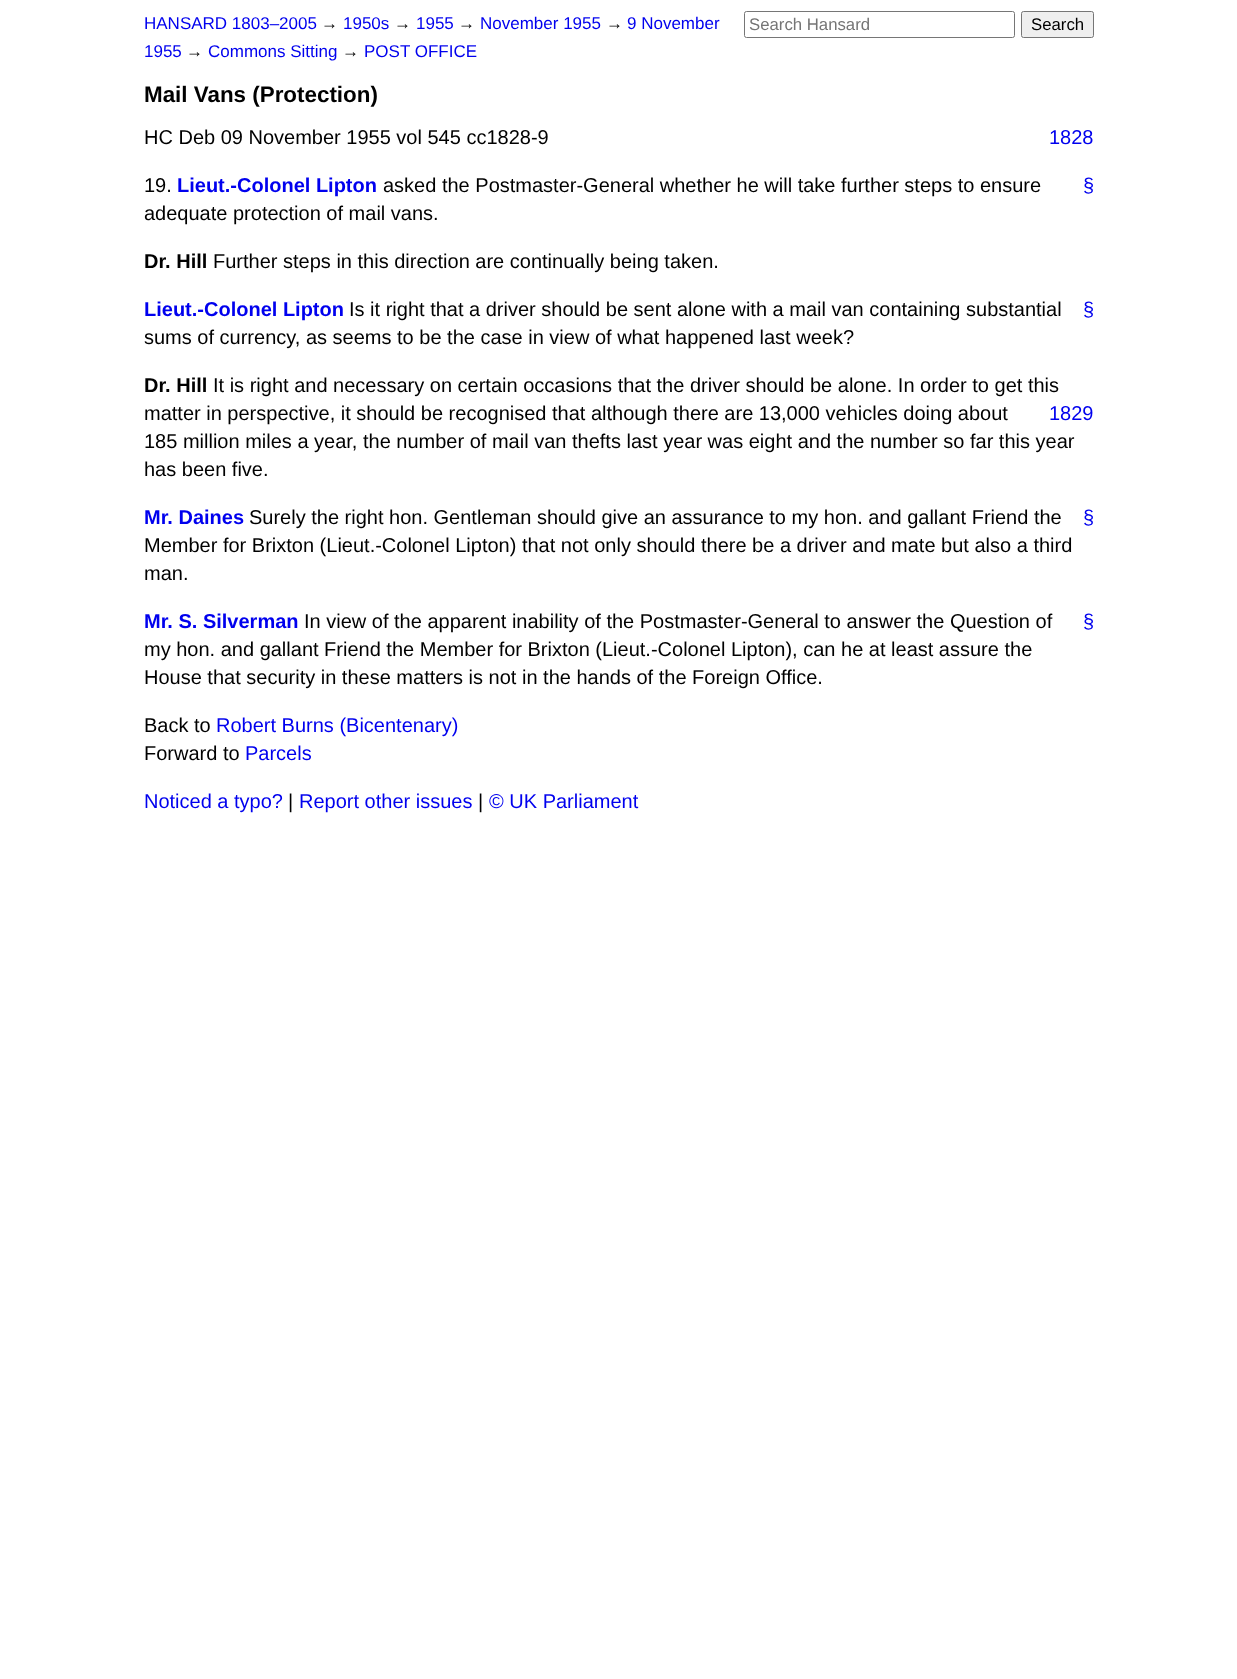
(async () => {
    const canvas = document.querySelector("canvas");
    canvas.width = 1237;
    canvas.height = 1679;
    const context = canvas.getContext("2d");
    context.miterLimit = 4;
    context.fontKerning = "normal";
    function write(s, x, y, font, color) {
        context.font = font;
        context.fillStyle = color;
        context.fillText(s, x, y);
    }
    function block(x, y, w, h, color) {
        context.fillStyle = color;
        context.fillRect(x, y, w, h);
    }

    block(0, 0, 1237, 1679, "rgb(255, 255, 255)");
    write("HANSARD 1803–2005", 144, 29, "17px Liberation Sans", "rgb(0, 0, 238)");
    write("→", 321, 29, "17px Liberation Sans", "rgb(0, 0, 0)");
    write("1950s", 343, 29, "17px Liberation Sans", "rgb(0, 0, 238)");
    write("→", 394, 29, "17px Liberation Sans", "rgb(0, 0, 0)");
    write("1955", 416, 29, "17px Liberation Sans", "rgb(0, 0, 238)");
    write("→", 458, 29, "17px Liberation Sans", "rgb(0, 0, 0)");
    write("November 1955", 480, 29, "17px Liberation Sans", "rgb(0, 0, 238)");
    write("→", 606, 29, "17px Liberation Sans", "rgb(0, 0, 0)");
    write("9 November", 627, 29, "17px Liberation Sans", "rgb(0, 0, 238)");
    write("1955", 144, 57, "17px Liberation Sans", "rgb(0, 0, 238)");
    write("→", 186, 57, "17px Liberation Sans", "rgb(0, 0, 0)");
    write("Commons Sitting", 208, 57, "17px Liberation Sans", "rgb(0, 0, 238)");
    write("→", 342, 57, "17px Liberation Sans", "rgb(0, 0, 0)");
    write("POST OFFICE", 364, 57, "17px Liberation Sans", "rgb(0, 0, 238)");
    context.beginPath();
    context.roundRect(744.5, 11.5, 270, 26, 2);
    context.strokeStyle = "rgb(118, 118, 118)";
    context.stroke();
    write("Search Hansard", 749, 30, "16.75px Liberation Sans", "rgb(117, 117, 117)");
    context.fillStyle = "rgb(239, 239, 239)";
    context.beginPath();
    context.roundRect(1021.5, 11.5, 72, 26, 2);
    context.fill();
    context.stroke();
    write("Search", 1031, 30, "16.75px Liberation Sans", "rgb(0, 0, 0)");
    write("Mail Vans (Protection)", 144, 102, "bold 22.4px Liberation Sans", "rgb(0, 0, 0)");
    write("HC Deb 09 November 1955 vol 545 cc1828-9", 144, 144, "20px Liberation Sans", "rgb(0, 0, 0)");
    write("1828", 1049, 144, "20px Liberation Sans", "rgb(0, 0, 238)");
    write("19.", 144, 192, "20px Liberation Sans", "rgb(0, 0, 0)");
    write("Lieut.-Colonel Lipton", 177, 192, "bold 20px Liberation Sans", "rgb(0, 0, 238)");
    write("asked the Postmaster-General whether he will take further steps to ensure", 383, 192, "20px Liberation Sans", "rgb(0, 0, 0)");
    write("§", 1083, 192, "20px Liberation Sans", "rgb(0, 0, 238)");
    write("adequate protection of mail vans.", 144, 220, "20px Liberation Sans", "rgb(0, 0, 0)");
    write("Dr. Hill", 144, 268, "bold 20px Liberation Sans", "rgb(0, 0, 0)");
    write("Further steps in this direction are continually being taken.", 213, 268, "20px Liberation Sans", "rgb(0, 0, 0)");
    write("Lieut.-Colonel Lipton", 144, 316, "bold 20px Liberation Sans", "rgb(0, 0, 238)");
    write("Is it right that a driver should be sent alone with a mail van containing substantial", 349, 316, "20px Liberation Sans", "rgb(0, 0, 0)");
    write("§", 1083, 316, "20px Liberation Sans", "rgb(0, 0, 238)");
    write("sums of currency, as seems to be the case in view of what happened last week?", 144, 344, "20px Liberation Sans", "rgb(0, 0, 0)");
    write("It is right and necessary on certain occasions that the driver should be alone. In order to get this", 213, 392, "20px Liberation Sans", "rgb(0, 0, 0)");
    write("matter in perspective, it should be recognised that although there are 13,000 vehicles doing about", 144, 420, "20px Liberation Sans", "rgb(0, 0, 0)");
    write("1829", 1049, 420, "20px Liberation Sans", "rgb(0, 0, 238)");
    write("185 million miles a year, the number of mail van thefts last year was eight and the number so far this year", 144, 448, "20px Liberation Sans", "rgb(0, 0, 0)");
    write("has been five.", 144, 476, "20px Liberation Sans", "rgb(0, 0, 0)");
    write("Dr. Hill", 144, 392, "bold 20px Liberation Sans", "rgb(0, 0, 0)");
    write("Mr. Daines", 144, 524, "bold 20px Liberation Sans", "rgb(0, 0, 238)");
    write("Surely the right hon. Gentleman should give an assurance to my hon. and gallant Friend the", 249, 524, "20px Liberation Sans", "rgb(0, 0, 0)");
    write("§", 1083, 524, "20px Liberation Sans", "rgb(0, 0, 238)");
    write("Member for Brixton (Lieut.-Colonel Lipton) that not only should there be a driver and mate but also a third", 144, 552, "20px Liberation Sans", "rgb(0, 0, 0)");
    write("man.", 144, 580, "20px Liberation Sans", "rgb(0, 0, 0)");
    write("Mr. S. Silverman", 144, 628, "bold 20px Liberation Sans", "rgb(0, 0, 238)");
    write("In view of the apparent inability of the Postmaster-General to answer the Question of", 304, 628, "20px Liberation Sans", "rgb(0, 0, 0)");
    write("§", 1083, 628, "20px Liberation Sans", "rgb(0, 0, 238)");
    write("my hon. and gallant Friend the Member for Brixton (Lieut.-Colonel Lipton), can he at least assure the", 144, 656, "20px Liberation Sans", "rgb(0, 0, 0)");
    write("House that security in these matters is not in the hands of the Foreign Office.", 144, 684, "20px Liberation Sans", "rgb(0, 0, 0)");
    write("Back to", 144, 732, "20px Liberation Sans", "rgb(0, 0, 0)");
    write("Robert Burns (Bicentenary)", 216, 732, "20px Liberation Sans", "rgb(0, 0, 238)");
    write("Forward to", 144, 760, "20px Liberation Sans", "rgb(0, 0, 0)");
    write("Parcels", 245, 760, "20px Liberation Sans", "rgb(0, 0, 238)");
    write("Noticed a typo?", 144, 808, "20px Liberation Sans", "rgb(0, 0, 238)");
    write("|", 288, 808, "20px Liberation Sans", "rgb(0, 0, 0)");
    write("Report other issues", 299, 808, "20px Liberation Sans", "rgb(0, 0, 238)");
    write("|", 478, 808, "20px Liberation Sans", "rgb(0, 0, 0)");
    write("© UK Parliament", 489, 808, "20px Liberation Sans", "rgb(0, 0, 238)");
})();
